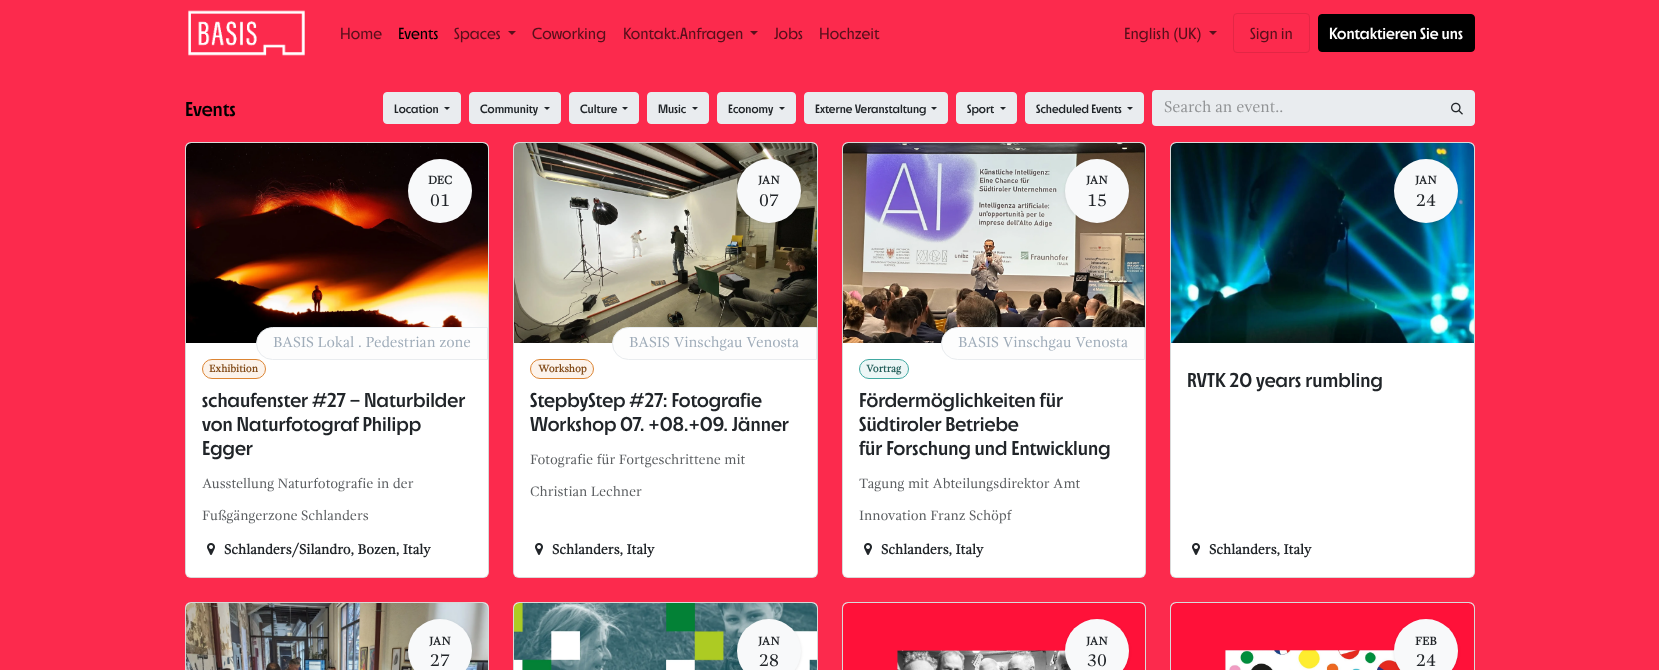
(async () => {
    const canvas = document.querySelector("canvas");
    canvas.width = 1659;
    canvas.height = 670;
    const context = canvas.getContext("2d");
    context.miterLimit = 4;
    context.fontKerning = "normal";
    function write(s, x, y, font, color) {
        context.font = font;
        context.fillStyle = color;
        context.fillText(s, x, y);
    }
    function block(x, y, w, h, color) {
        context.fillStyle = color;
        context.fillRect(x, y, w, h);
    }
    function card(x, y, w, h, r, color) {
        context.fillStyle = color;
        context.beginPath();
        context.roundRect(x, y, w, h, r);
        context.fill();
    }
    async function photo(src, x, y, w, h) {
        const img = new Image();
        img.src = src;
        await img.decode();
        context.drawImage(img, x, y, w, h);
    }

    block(0, 0, 1659, 670, "rgb(252, 42, 77)");
    await photo("media/1.png", 188, 10, 117, 46);
    write("Home", 340, 39, "300 16px 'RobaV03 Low'", "rgb(88, 15, 27)");
    write("Events", 398, 39, "300 16px 'RobaV03 Low'", "rgb(0, 0, 0)");
    write("Spaces", 454, 39, "300 16px 'RobaV03 Low'", "rgb(88, 15, 27)");
    context.beginPath();
    context.moveTo(508, 31);
    context.lineTo(516, 31);
    context.lineTo(512, 35);
    context.closePath();
    context.fill();
    write("Coworking", 532, 39, "300 16px 'RobaV03 Low'", "rgb(88, 15, 27)");
    write("Kontakt.Anfragen", 623, 39, "300 16px 'RobaV03 Low'", "rgb(88, 15, 27)");
    context.beginPath();
    context.moveTo(750, 31);
    context.lineTo(758, 31);
    context.lineTo(754, 35);
    context.closePath();
    context.fill();
    write("Jobs", 774, 39, "300 16px 'RobaV03 Low'", "rgb(88, 15, 27)");
    write("Hochzeit", 819, 39, "300 16px 'RobaV03 Low'", "rgb(88, 15, 27)");
    write("English (UK)", 1124, 39, "300 16px 'RobaV03 Low'", "rgb(88, 15, 27)");
    context.beginPath();
    context.moveTo(1209, 31);
    context.lineTo(1217, 31);
    context.lineTo(1213, 35);
    context.closePath();
    context.fill();
    context.beginPath();
    context.roundRect(1233.5, 13.5, 76, 39, 3.5);
    context.strokeStyle = "rgb(227, 38, 69)";
    context.stroke();
    write("Sign in", 1250, 39, "300 16px 'RobaV03 Low'", "rgb(88, 15, 27)");
    context.fillStyle = "rgb(0, 0, 0)";
    context.beginPath();
    context.roundRect(1318.5, 14.5, 156, 37, 3.5);
    context.fill();
    context.strokeStyle = "rgb(0, 0, 0)";
    context.stroke();
    write("Kontaktieren Sie uns", 1329, 39, "500 16px 'RobaV03 Low'", "rgb(255, 255, 255)");
    write("Events", 185, 116, "500 20px 'RobaV03 Low'", "rgb(0, 0, 0)");
    context.fillStyle = "rgb(233, 236, 239)";
    context.beginPath();
    context.roundRect(383.5, 92.5, 77, 31, 3.5);
    context.fill();
    context.strokeStyle = "rgb(233, 236, 239)";
    context.stroke();
    write("Location", 394, 113, "500 12px 'RobaV03 Low'", "rgb(33, 37, 41)");
    context.beginPath();
    context.moveTo(444, 107);
    context.lineTo(450, 107);
    context.lineTo(447, 110);
    context.closePath();
    context.fill();
    context.fillStyle = "rgb(233, 236, 239)";
    context.beginPath();
    context.roundRect(469.5, 92.5, 91, 31, 3.5);
    context.fill();
    context.stroke();
    write("Community", 480, 113, "500 12px 'RobaV03 Low'", "rgb(33, 37, 41)");
    context.beginPath();
    context.moveTo(544, 107);
    context.lineTo(550, 107);
    context.lineTo(547, 110);
    context.closePath();
    context.fill();
    context.fillStyle = "rgb(233, 236, 239)";
    context.beginPath();
    context.roundRect(569.5, 92.5, 69, 31, 3.5);
    context.fill();
    context.stroke();
    write("Culture", 580, 113, "500 12px 'RobaV03 Low'", "rgb(33, 37, 41)");
    context.beginPath();
    context.moveTo(622, 107);
    context.lineTo(628, 107);
    context.lineTo(625, 110);
    context.closePath();
    context.fill();
    context.fillStyle = "rgb(233, 236, 239)";
    context.beginPath();
    context.roundRect(647.5, 92.5, 61, 31, 3.5);
    context.fill();
    context.stroke();
    write("Music", 658, 113, "500 12px 'RobaV03 Low'", "rgb(33, 37, 41)");
    context.beginPath();
    context.moveTo(692, 107);
    context.lineTo(698, 107);
    context.lineTo(695, 110);
    context.closePath();
    context.fill();
    context.fillStyle = "rgb(233, 236, 239)";
    context.beginPath();
    context.roundRect(717.5, 92.5, 78, 31, 3.5);
    context.fill();
    context.stroke();
    write("Economy", 728, 113, "500 12px 'RobaV03 Low'", "rgb(33, 37, 41)");
    context.beginPath();
    context.moveTo(779, 107);
    context.lineTo(785, 107);
    context.lineTo(782, 110);
    context.closePath();
    context.fill();
    context.fillStyle = "rgb(233, 236, 239)";
    context.beginPath();
    context.roundRect(804.5, 92.5, 143, 31, 3.5);
    context.fill();
    context.stroke();
    write("Externe Veranstaltung", 815, 113, "500 12px 'RobaV03 Low'", "rgb(33, 37, 41)");
    context.beginPath();
    context.moveTo(931, 107);
    context.lineTo(937, 107);
    context.lineTo(934, 110);
    context.closePath();
    context.fill();
    context.fillStyle = "rgb(233, 236, 239)";
    context.beginPath();
    context.roundRect(956.5, 92.5, 60, 31, 3.5);
    context.fill();
    context.stroke();
    write("Sport", 967, 113, "500 12px 'RobaV03 Low'", "rgb(33, 37, 41)");
    context.beginPath();
    context.moveTo(1000, 107);
    context.lineTo(1006, 107);
    context.lineTo(1003, 110);
    context.closePath();
    context.fill();
    context.fillStyle = "rgb(233, 236, 239)";
    context.beginPath();
    context.roundRect(1025.5, 92.5, 118, 31, 3.5);
    context.fill();
    context.stroke();
    write("Scheduled Events", 1036, 113, "500 12px 'RobaV03 Low'", "rgb(33, 37, 41)");
    context.beginPath();
    context.moveTo(1127, 107);
    context.lineTo(1133, 107);
    context.lineTo(1130, 110);
    context.closePath();
    context.fill();
    context.fillStyle = "rgb(233, 236, 239)";
    context.beginPath();
    context.roundRect(1152, 90, 289, 36, [4, 0, 0, 4]);
    context.fill();
    write("Search an event..", 1164, 112, "16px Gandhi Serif", "rgb(144, 146, 148)");
    context.fillStyle = "rgb(233, 236, 239)";
    context.beginPath();
    context.roundRect(1440.5, 90.5, 34, 35, [0, 3.5, 3.5, 0]);
    context.fill();
    context.stroke();
    await photo("media/2.png", 1451, 102, 12, 13);
    card(185, 142, 304, 436, 6, "rgb(255, 255, 255)");
    context.beginPath();
    context.roundRect(185.5, 142.5, 303, 435, 5.5);
    context.strokeStyle = "rgba(0, 0, 0, 0.15)";
    context.stroke();
    context.fillStyle = "rgb(233, 236, 239)";
    context.beginPath();
    context.roundRect(186, 143, 302, 200, [5, 5, 0, 0]);
    context.fill();
    await photo("media/3.png", 186, 143, 302, 200);
    context.fillStyle = "rgb(248, 249, 250)";
    context.beginPath();
    context.arc(440, 191, 32, 0, Math.PI * 2);
    context.fill();
    write("DEC", 428, 184, "bold 12px Gandhi Serif", "rgb(33, 37, 41)");
    write("01", 430, 206, "18px Gandhi Serif", "rgb(33, 37, 41)");
    context.fillStyle = "rgba(255, 255, 255, 0.9)";
    context.beginPath();
    context.roundRect(186, 343, 302, 234, [0, 0, 5, 5]);
    context.fill();
    context.fillStyle = "rgb(252, 243, 235)";
    context.beginPath();
    context.roundRect(202.5, 359.5, 63, 19, 9.5);
    context.fill();
    context.strokeStyle = "rgb(220, 133, 52)";
    context.stroke();
    context.fillStyle = "rgb(253, 253, 253)";
    context.beginPath();
    context.roundRect(256.5, 327.5, 231, 32, [16, 0, 0, 16]);
    context.fill();
    context.strokeStyle = "rgb(233, 236, 239)";
    context.stroke();
    write("BASIS Lokal . Pedestrian zone", 273, 347, "15px Gandhi Serif", "rgb(159, 172, 185)");
    write("Exhibition", 209, 372, "bold 10.5px Gandhi Serif", "rgb(128, 73, 22)");
    write("schaufenster #27 – Naturbilder", 202, 407, "500 20px 'RobaV03 Low'", "rgb(33, 37, 41)");
    write("von Naturfotograf Philipp", 202, 431, "500 20px 'RobaV03 Low'", "rgb(33, 37, 41)");
    write("Egger", 202, 455, "500 20px 'RobaV03 Low'", "rgb(33, 37, 41)");
    write("Ausstellung Naturfotografie in der", 202, 488, "14px Gandhi Serif", "rgb(89, 92, 95)");
    write("Fußgängerzone Schlanders", 202, 520, "14px Gandhi Serif", "rgb(89, 92, 95)");
    await photo("media/4.png", 207, 543, 8, 12);
    write("Schlanders/Silandro, Bozen, Italy", 224, 554, "bold 14px Gandhi Serif", "rgb(33, 37, 41)");
    card(513, 142, 305, 436, 6, "rgb(255, 255, 255)");
    context.beginPath();
    context.roundRect(513.5, 142.5, 304, 435, 5.5);
    context.strokeStyle = "rgba(0, 0, 0, 0.15)";
    context.stroke();
    context.fillStyle = "rgb(233, 236, 239)";
    context.beginPath();
    context.roundRect(514, 143, 303, 200, [5, 5, 0, 0]);
    context.fill();
    await photo("media/5.png", 514, 143, 303, 200);
    context.fillStyle = "rgba(0, 0, 0, 0.1)";
    context.filter = "blur(1.5px)";
    context.beginPath();
    context.roundRect(737, 160, 64, 64, 32);
    context.fill();
    context.filter = "none";
    context.fillStyle = "rgb(248, 249, 250)";
    context.beginPath();
    context.arc(769, 191, 32, 0, Math.PI * 2);
    context.fill();
    write("JAN", 758, 184, "bold 12px Gandhi Serif", "rgb(33, 37, 41)");
    write("07", 759, 206, "18px Gandhi Serif", "rgb(33, 37, 41)");
    context.fillStyle = "rgba(255, 255, 255, 0.9)";
    context.beginPath();
    context.roundRect(514, 343, 303, 234, [0, 0, 5, 5]);
    context.fill();
    context.fillStyle = "rgb(253, 253, 253)";
    context.beginPath();
    context.roundRect(612.5, 327.5, 204, 32, [16, 0, 0, 16]);
    context.fill();
    context.strokeStyle = "rgb(233, 236, 239)";
    context.stroke();
    write("BASIS Vinschgau Venosta", 629, 347, "15px Gandhi Serif", "rgb(159, 172, 185)");
    context.fillStyle = "rgb(252, 243, 235)";
    context.beginPath();
    context.roundRect(530.5, 359.5, 63, 19, 9.5);
    context.fill();
    context.strokeStyle = "rgb(220, 133, 52)";
    context.stroke();
    write("Workshop", 538, 372, "bold 10.5px Gandhi Serif", "rgb(128, 73, 22)");
    write("StepbyStep #27: Fotografie", 530, 407, "500 20px 'RobaV03 Low'", "rgb(33, 37, 41)");
    write("Workshop 07. +08.+09. Jänner", 530, 431, "500 20px 'RobaV03 Low'", "rgb(33, 37, 41)");
    write("Fotografie für Fortgeschrittene mit", 530, 464, "14px Gandhi Serif", "rgb(89, 92, 95)");
    write("Christian Lechner", 530, 496, "14px Gandhi Serif", "rgb(89, 92, 95)");
    await photo("media/4.png", 535, 543, 8, 12);
    write("Schlanders, Italy", 552, 554, "bold 14px Gandhi Serif", "rgb(33, 37, 41)");
    card(842, 142, 304, 436, 6, "rgb(255, 255, 255)");
    context.beginPath();
    context.roundRect(842.5, 142.5, 303, 435, 5.5);
    context.strokeStyle = "rgba(0, 0, 0, 0.15)";
    context.stroke();
    context.fillStyle = "rgb(233, 236, 239)";
    context.beginPath();
    context.roundRect(843, 143, 302, 200, [5, 5, 0, 0]);
    context.fill();
    await photo("media/6.png", 843, 143, 302, 200);
    context.fillStyle = "rgba(0, 0, 0, 0.1)";
    context.filter = "blur(1.5px)";
    context.beginPath();
    context.roundRect(1065, 160, 64, 64, 32);
    context.fill();
    context.filter = "none";
    context.fillStyle = "rgb(248, 249, 250)";
    context.beginPath();
    context.arc(1097, 191, 32, 0, Math.PI * 2);
    context.fill();
    write("JAN", 1086, 184, "bold 12px Gandhi Serif", "rgb(33, 37, 41)");
    write("15", 1087, 206, "18px Gandhi Serif", "rgb(33, 37, 41)");
    context.fillStyle = "rgba(255, 255, 255, 0.9)";
    context.beginPath();
    context.roundRect(843, 343, 302, 234, [0, 0, 5, 5]);
    context.fill();
    context.fillStyle = "rgb(253, 253, 253)";
    context.beginPath();
    context.roundRect(941.5, 327.5, 203, 32, [16, 0, 0, 16]);
    context.fill();
    context.strokeStyle = "rgb(233, 236, 239)";
    context.stroke();
    write("BASIS Vinschgau Venosta", 958, 347, "15px Gandhi Serif", "rgb(159, 172, 185)");
    context.fillStyle = "rgb(236, 246, 246)";
    context.beginPath();
    context.roundRect(859.5, 359.5, 49, 19, 9.5);
    context.fill();
    context.strokeStyle = "rgb(65, 169, 162)";
    context.stroke();
    write("Vortrag", 866, 372, "bold 10.5px Gandhi Serif", "rgb(37, 95, 91)");
    write("Fördermöglichkeiten für", 859, 407, "500 20px 'RobaV03 Low'", "rgb(33, 37, 41)");
    write("Südtiroler Betriebe", 859, 431, "500 20px 'RobaV03 Low'", "rgb(33, 37, 41)");
    write("für Forschung und Entwicklung", 859, 455, "500 20px 'RobaV03 Low'", "rgb(33, 37, 41)");
    write("Tagung mit Abteilungsdirektor Amt", 859, 488, "14px Gandhi Serif", "rgb(89, 92, 95)");
    write("Innovation Franz Schöpf", 859, 520, "14px Gandhi Serif", "rgb(89, 92, 95)");
    await photo("media/4.png", 864, 543, 8, 12);
    write("Schlanders, Italy", 881, 554, "bold 14px Gandhi Serif", "rgb(33, 37, 41)");
    card(1170, 142, 305, 436, 6, "rgb(255, 255, 255)");
    context.beginPath();
    context.roundRect(1170.5, 142.5, 304, 435, 5.5);
    context.strokeStyle = "rgba(0, 0, 0, 0.15)";
    context.stroke();
    context.fillStyle = "rgb(233, 236, 239)";
    context.beginPath();
    context.roundRect(1171, 143, 303, 200, [5, 5, 0, 0]);
    context.fill();
    await photo("media/7.png", 1171, 143, 303, 200);
    context.fillStyle = "rgba(0, 0, 0, 0.1)";
    context.filter = "blur(1.5px)";
    context.beginPath();
    context.roundRect(1394, 160, 64, 64, 32);
    context.fill();
    context.filter = "none";
    context.fillStyle = "rgb(248, 249, 250)";
    context.beginPath();
    context.arc(1426, 191, 32, 0, Math.PI * 2);
    context.fill();
    write("JAN", 1415, 184, "bold 12px Gandhi Serif", "rgb(33, 37, 41)");
    write("24", 1416, 206, "18px Gandhi Serif", "rgb(33, 37, 41)");
    context.fillStyle = "rgba(255, 255, 255, 0.9)";
    context.beginPath();
    context.roundRect(1171, 343, 303, 234, [0, 0, 5, 5]);
    context.fill();
    write("RVTK 20 years rumbling", 1187, 387, "500 20px 'RobaV03 Low'", "rgb(33, 37, 41)");
    await photo("media/4.png", 1192, 543, 8, 12);
    write("Schlanders, Italy", 1209, 554, "bold 14px Gandhi Serif", "rgb(33, 37, 41)");
    card(185, 602, 304, 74, 6, "rgb(255, 255, 255)");
    context.beginPath();
    context.roundRect(185.5, 602.5, 303, 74, 5.5);
    context.stroke();
    context.fillStyle = "rgb(233, 236, 239)";
    context.beginPath();
    context.moveTo(191, 603);
    context.lineTo(483, 603);
    context.bezierCurveTo(486, 603, 488, 605, 488, 608);
    context.lineTo(488, 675);
    context.lineTo(186, 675);
    context.lineTo(186, 608);
    context.bezierCurveTo(186, 605, 188, 603, 191, 603);
    context.closePath();
    context.fill();
    await photo("media/8.png", 186, 603, 302, 67);
    context.fillStyle = "rgba(0, 0, 0, 0.1)";
    context.filter = "blur(1.5px)";
    context.beginPath();
    context.roundRect(408, 620, 64, 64, 32);
    context.fill();
    context.filter = "none";
    context.fillStyle = "rgb(248, 249, 250)";
    context.beginPath();
    context.arc(440, 651, 32, 0, Math.PI * 2);
    context.fill();
    write("JAN", 429, 645, "bold 12px Gandhi Serif", "rgb(33, 37, 41)");
    write("27", 430, 666, "18px Gandhi Serif", "rgb(33, 37, 41)");
    card(513, 602, 305, 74, 6, "rgb(255, 255, 255)");
    context.beginPath();
    context.roundRect(513.5, 602.5, 304, 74, 5.5);
    context.stroke();
    context.fillStyle = "rgb(233, 236, 239)";
    context.beginPath();
    context.moveTo(519, 603);
    context.lineTo(812, 603);
    context.bezierCurveTo(815, 603, 817, 605, 817, 608);
    context.lineTo(817, 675);
    context.lineTo(514, 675);
    context.lineTo(514, 608);
    context.bezierCurveTo(514, 605, 516, 603, 519, 603);
    context.closePath();
    context.fill();
    await photo("media/9.png", 514, 603, 303, 67);
    context.fillStyle = "rgba(0, 0, 0, 0.1)";
    context.filter = "blur(1.5px)";
    context.beginPath();
    context.roundRect(737, 620, 64, 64, 32);
    context.fill();
    context.filter = "none";
    context.fillStyle = "rgb(248, 249, 250)";
    context.beginPath();
    context.arc(769, 651, 32, 0, Math.PI * 2);
    context.fill();
    write("JAN", 758, 645, "bold 12px Gandhi Serif", "rgb(33, 37, 41)");
    write("28", 759, 666, "18px Gandhi Serif", "rgb(33, 37, 41)");
    card(842, 602, 304, 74, 6, "rgb(255, 255, 255)");
    context.beginPath();
    context.roundRect(842.5, 602.5, 303, 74, 5.5);
    context.stroke();
    context.fillStyle = "rgb(233, 236, 239)";
    context.beginPath();
    context.moveTo(848, 603);
    context.lineTo(1140, 603);
    context.bezierCurveTo(1143, 603, 1145, 605, 1145, 608);
    context.lineTo(1145, 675);
    context.lineTo(843, 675);
    context.lineTo(843, 608);
    context.bezierCurveTo(843, 605, 845, 603, 848, 603);
    context.closePath();
    context.fill();
    await photo("media/10.png", 843, 603, 302, 67);
    context.fillStyle = "rgba(0, 0, 0, 0.1)";
    context.filter = "blur(1.5px)";
    context.beginPath();
    context.roundRect(1065, 620, 64, 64, 32);
    context.fill();
    context.filter = "none";
    context.fillStyle = "rgb(248, 249, 250)";
    context.beginPath();
    context.arc(1097, 651, 32, 0, Math.PI * 2);
    context.fill();
    write("JAN", 1086, 645, "bold 12px Gandhi Serif", "rgb(33, 37, 41)");
    write("30", 1087, 666, "18px Gandhi Serif", "rgb(33, 37, 41)");
    card(1170, 602, 305, 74, 6, "rgb(255, 255, 255)");
    context.beginPath();
    context.roundRect(1170.5, 602.5, 304, 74, 5.5);
    context.stroke();
    context.fillStyle = "rgb(233, 236, 239)";
    context.beginPath();
    context.moveTo(1176, 603);
    context.lineTo(1469, 603);
    context.bezierCurveTo(1472, 603, 1474, 605, 1474, 608);
    context.lineTo(1474, 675);
    context.lineTo(1171, 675);
    context.lineTo(1171, 608);
    context.bezierCurveTo(1171, 605, 1173, 603, 1176, 603);
    context.closePath();
    context.fill();
    await photo("media/11.png", 1171, 603, 303, 67);
    context.fillStyle = "rgba(0, 0, 0, 0.1)";
    context.filter = "blur(1.5px)";
    context.beginPath();
    context.roundRect(1394, 620, 64, 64, 32);
    context.fill();
    context.filter = "none";
    context.fillStyle = "rgb(248, 249, 250)";
    context.beginPath();
    context.arc(1426, 651, 32, 0, Math.PI * 2);
    context.fill();
    write("FEB", 1415, 645, "bold 12px Gandhi Serif", "rgb(33, 37, 41)");
    write("24", 1416, 666, "18px Gandhi Serif", "rgb(33, 37, 41)");
})();
